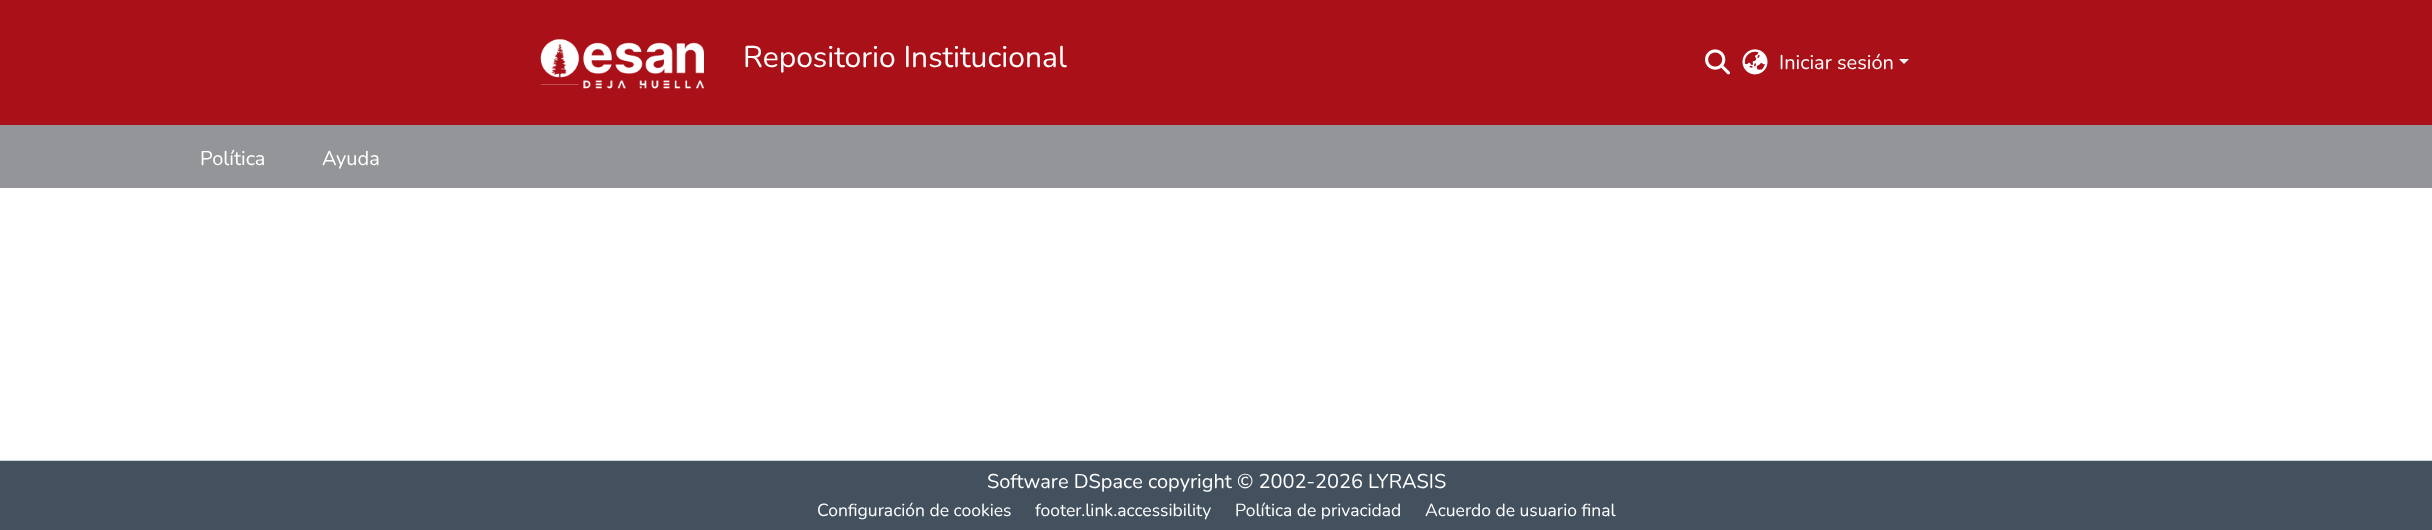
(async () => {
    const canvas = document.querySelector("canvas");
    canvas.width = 2432;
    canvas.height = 530;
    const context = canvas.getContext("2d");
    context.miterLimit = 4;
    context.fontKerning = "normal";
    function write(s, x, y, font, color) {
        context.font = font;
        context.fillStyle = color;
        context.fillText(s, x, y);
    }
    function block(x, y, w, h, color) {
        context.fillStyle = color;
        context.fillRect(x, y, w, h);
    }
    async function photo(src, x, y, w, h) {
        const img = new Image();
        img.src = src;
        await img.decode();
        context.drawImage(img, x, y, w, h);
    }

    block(0, 0, 2432, 530, "rgb(255, 255, 255)");
    block(0, 0, 2432, 125, "rgb(170, 16, 23)");
    await photo("media/1.png", 540, 38, 164, 51);
    write("Repositorio Institucional", 743, 67, "30px Nunito", "rgb(255, 255, 255)");
    await photo("media/2.png", 1705, 49, 25, 26);
    await photo("media/3.png", 1742, 49, 26, 26);
    write("Iniciar sesión", 1779, 69, "20px Nunito", "rgb(255, 255, 255)");
    context.beginPath();
    context.moveTo(1899, 59);
    context.lineTo(1909, 59);
    context.lineTo(1904, 64);
    context.closePath();
    context.fill();
    block(0, 125, 2432, 63, "rgb(147, 149, 152)");
    write("Política", 200, 165, "20px Nunito", "rgb(255, 255, 255)");
    write("Ayuda", 322, 165, "20px Nunito", "rgb(255, 255, 255)");
    block(0, 461, 2432, 69, "rgb(67, 81, 95)");
    block(0, 460, 2432, 1, "rgb(206, 212, 218)");
    write("Software DSpace copyright © 2002-2026 LYRASIS", 987, 488, "20px Nunito", "rgb(255, 255, 255)");
    write("Configuración de cookies", 817, 516, "17.5px Nunito", "rgb(255, 255, 255)");
    block(1023, 496, 1, 29, "rgb(73, 80, 87)");
    write("footer.link.accessibility", 1035, 516, "17.5px Nunito", "rgb(255, 255, 255)");
    block(1223, 496, 1, 29, "rgb(73, 80, 87)");
    write("Política de privacidad", 1235, 516, "17.5px Nunito", "rgb(255, 255, 255)");
    block(1413, 496, 1, 29, "rgb(73, 80, 87)");
    write("Acuerdo de usuario final", 1425, 516, "17.5px Nunito", "rgb(255, 255, 255)");
})();
